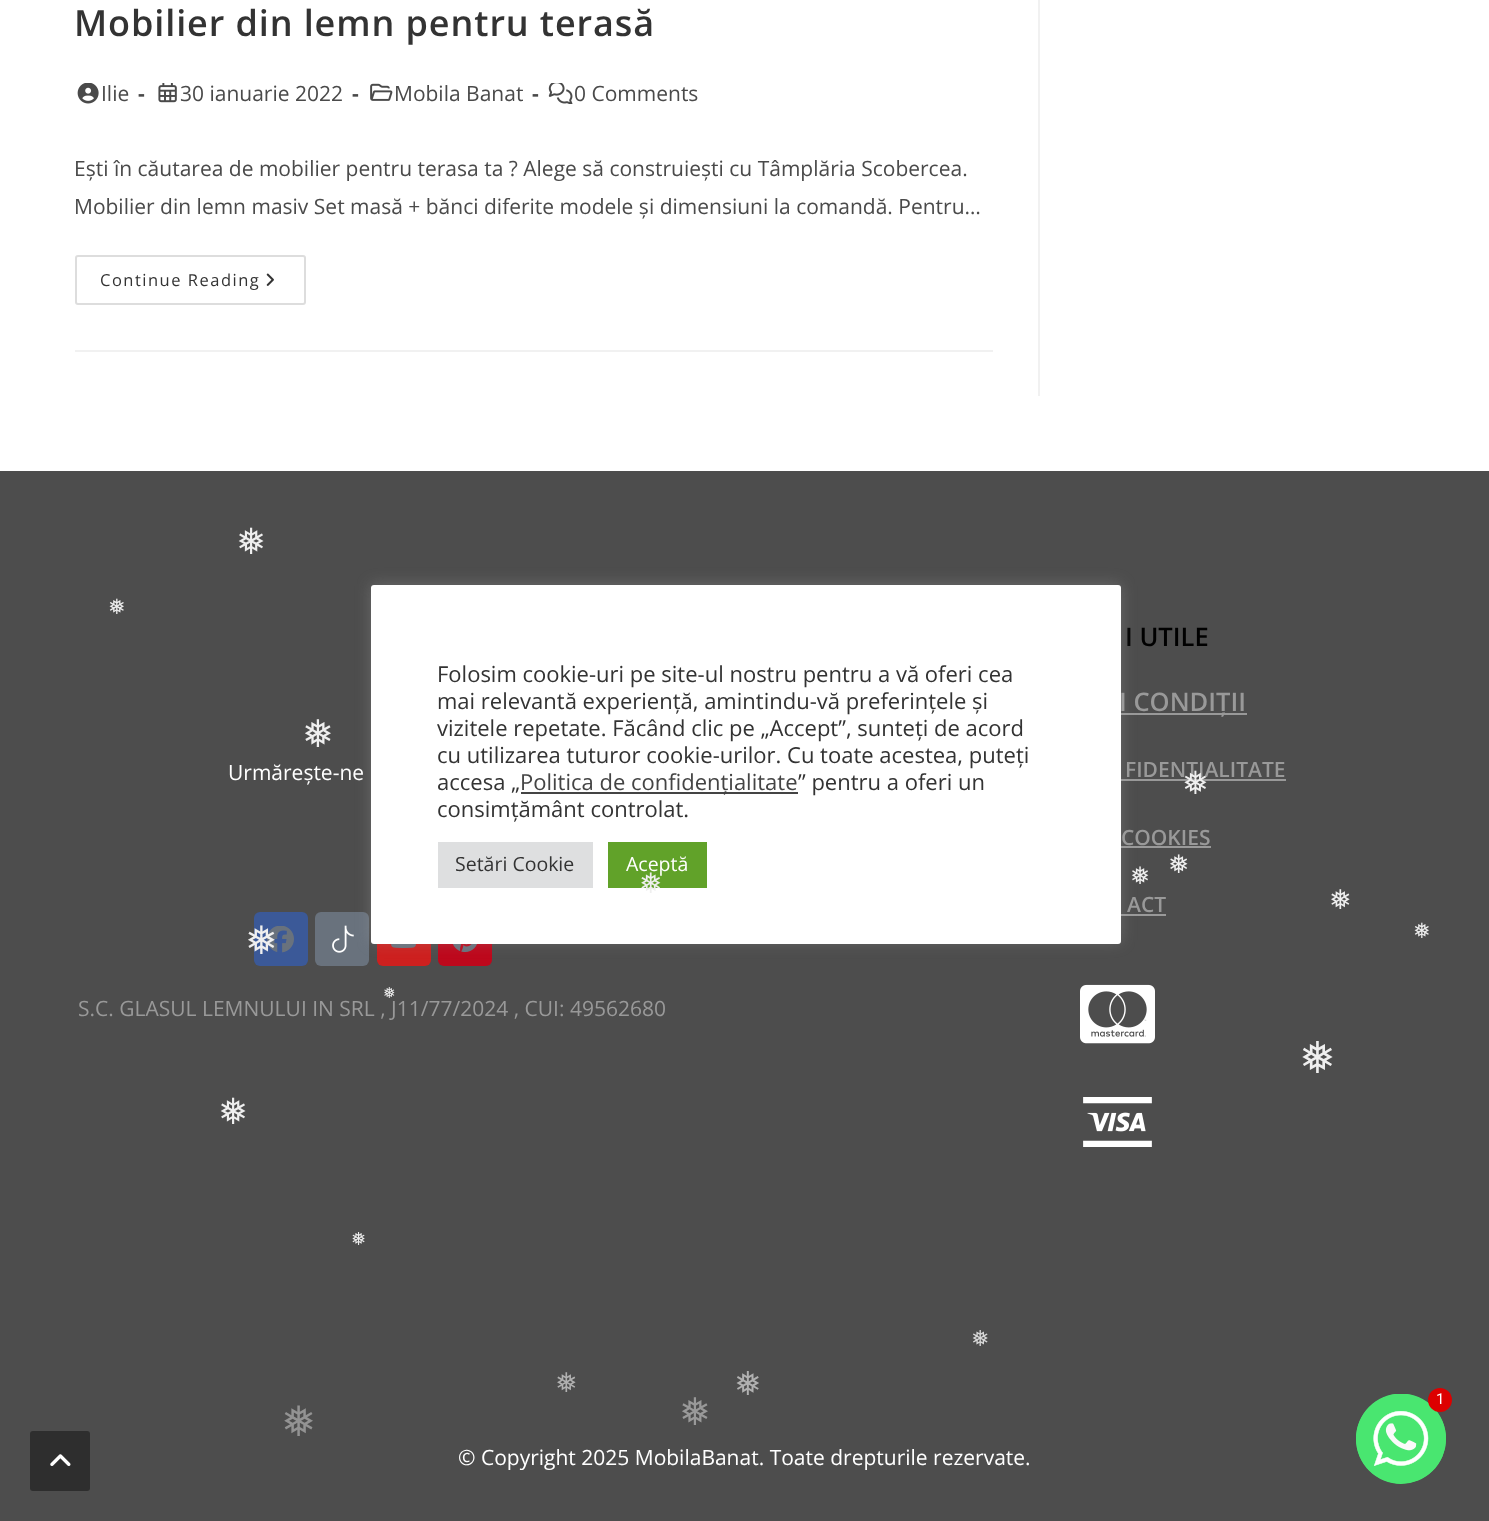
(async () => {
    const canvas = document.querySelector("canvas");
    canvas.width = 1489;
    canvas.height = 1521;
    const context = canvas.getContext("2d");
    context.miterLimit = 4;
    context.fontKerning = "normal";
    function write(s, x, y, font, color) {
        context.font = font;
        context.fillStyle = color;
        context.fillText(s, x, y);
    }
    function block(x, y, w, h, color) {
        context.fillStyle = color;
        context.fillRect(x, y, w, h);
    }
    function card(x, y, w, h, r, color) {
        context.fillStyle = color;
        context.beginPath();
        context.roundRect(x, y, w, h, r);
        context.fill();
    }
    async function photo(src, x, y, w, h) {
        const img = new Image();
        img.src = src;
        await img.decode();
        context.drawImage(img, x, y, w, h);
    }

    block(0, 0, 1489, 1521, "rgb(255, 255, 255)");
    block(1038, 0, 2, 396, "rgb(241, 241, 241)");
    block(75, 350, 918, 2, "rgb(241, 241, 241)");
    context.letterSpacing = "0.9px";
    write("Mobilier din lemn pentru terasă", 74, 36, "600 36px Open Sans", "rgb(51, 51, 51)");
    await photo("media/1.png", 77, 83, 22, 21);
    context.letterSpacing = "0px";
    write("Ilie", 101, 101, "21px Open Sans", "rgb(74, 74, 74)");
    write("-", 138, 101, "bold 21px Open Sans", "rgb(74, 74, 74)");
    await photo("media/2.png", 158, 83, 19, 20);
    write("30 ianuarie 2022", 180, 101, "21px Open Sans", "rgb(74, 74, 74)");
    write("-", 352, 101, "bold 21px Open Sans", "rgb(74, 74, 74)");
    await photo("media/3.png", 370, 83, 23, 18);
    write("Mobila Banat", 394, 101, "21px Open Sans", "rgb(74, 74, 74)");
    write("-", 532, 101, "bold 21px Open Sans", "rgb(74, 74, 74)");
    await photo("media/4.png", 548, 83, 25, 21);
    write("0 Comments", 574, 101, "21px Open Sans", "rgb(74, 74, 74)");
    write("Ești în căutarea de mobilier pentru terasa ta ? Alege să construiești cu Tâmplăria Scobercea.", 74, 176, "21px Open Sans", "rgb(74, 74, 74)");
    write("Mobilier din lemn masiv Set masă + bănci diferite modele și dimensiuni la comandă. Pentru…", 74, 214, "21px Open Sans", "rgb(74, 74, 74)");
    context.beginPath();
    context.roundRect(76, 256, 229, 48, 2);
    context.strokeStyle = "rgb(221, 221, 221)";
    context.lineWidth = 2;
    context.stroke();
    context.letterSpacing = "1.5px";
    write("Continue Reading", 100, 286, "16.5px Open Sans", "rgb(51, 51, 51)");
    await photo("media/5.png", 266, 273, 8, 13);
    block(0, 471, 1489, 1050, "rgb(77, 77, 77)");
    context.letterSpacing = "0px";
    write("Urmărește-ne", 228, 780, "21px Open Sans", "rgb(255, 255, 255)");
    card(254, 912, 54, 54, 6, "rgb(59, 89, 152)");
    await photo("media/6.png", 267, 926, 27, 27);
    card(315, 912, 54, 54, 6, "rgb(105, 114, 125)");
    await photo("media/7.png", 332, 925, 22, 28);
    card(377, 912, 54, 54, 6, "rgb(205, 32, 31)");
    await photo("media/8.png", 391, 944, 25, 4);
    card(438, 912, 54, 54, 6, "rgb(189, 8, 28)");
    await photo("media/9.png", 453, 944, 24, 9);
    write("S.C. GLASUL LEMNULUI IN SRL , J11/77/2024 , CUI: 49562680", 78, 1016, "21px Open Sans", "rgb(153, 153, 153)");
    write("I UTILE", 1125, 646, "600 25.5px Open Sans", "rgb(0, 0, 0)");
    block(1121, 713, 126, 2, "rgb(153, 153, 153)");
    write("I CONDIȚII", 1119, 711, "600 25.5px Open Sans", "rgb(153, 153, 153)");
    block(1121, 779, 165, 2, "rgb(153, 153, 153)");
    write("FIDENȚIALITATE", 1125, 777, "600 21px Open Sans", "rgb(153, 153, 153)");
    write("COOKIES", 1121, 845, "600 21px Open Sans", "rgb(153, 153, 153)");
    block(1121, 846, 90, 2, "rgb(153, 153, 153)");
    write("ACT", 1127, 912, "600 21px Open Sans", "rgb(153, 153, 153)");
    block(1121, 914, 45, 2, "rgb(153, 153, 153)");
    await photo("media/10.png", 1080, 984, 75, 60);
    await photo("media/11.png", 1083, 1097, 69, 50);
    write("© Copyright 2025 MobilaBanat. Toate drepturile rezervate.", 458, 1465, "21px Open Sans", "rgb(255, 255, 255)");
    write("❅", 236, 554, "36px DejaVu Sans", "rgb(239, 239, 239)");
    write("❅", 108, 614, "21px DejaVu Sans", "rgb(239, 239, 239)");
    write("❅", 302, 747, "38px DejaVu Sans", "rgb(239, 239, 239)");
    write("❅", 1182, 794, "32px DejaVu Sans", "rgb(239, 239, 239)");
    write("❅", 1168, 873, "25.5px DejaVu Sans", "rgb(239, 239, 239)");
    context.fillStyle = "rgba(172, 171, 171, 0.3)";
    context.filter = "blur(7.5px)";
    context.beginPath();
    context.roundRect(371, 584, 750, 358, 3);
    context.fill();
    context.filter = "none";
    card(371, 585, 750, 359, 3, "rgb(255, 255, 255)");
    block(608, 842, 99, 46, "rgb(97, 162, 41)");
    write("❅", 639, 893, "28px DejaVu Sans", "rgb(239, 239, 239)");
    write("❅", 1130, 884, "24px DejaVu Sans", "rgb(239, 239, 239)");
    write("❅", 1329, 909, "27px DejaVu Sans", "rgb(239, 239, 239)");
    write("❅", 245, 954, "39px DejaVu Sans", "rgb(239, 239, 239)");
    write("❅", 1413, 938, "21px DejaVu Sans", "rgb(239, 239, 239)");
    write("❅", 383, 998, "15px DejaVu Sans", "rgb(239, 239, 239)");
    write("❅", 1299, 1073, "44px DejaVu Sans", "rgb(239, 239, 239)");
    write("❅", 218, 1124, "36px DejaVu Sans", "rgb(239, 239, 239)");
    write("❅", 351, 1245, "18px DejaVu Sans", "rgb(239, 239, 239)");
    write("❅", 971, 1346, "22px DejaVu Sans", "rgb(216, 216, 216)");
    write("❅", 555, 1392, "27px DejaVu Sans", "rgb(177, 177, 177)");
    write("❅", 734, 1395, "33px DejaVu Sans", "rgb(177, 177, 177)");
    write("❅", 281, 1436, "42px DejaVu Sans", "rgb(147, 147, 147)");
    write("❅", 679, 1425, "38px DejaVu Sans", "rgb(153, 153, 153)");
    write("Folosim cookie-uri pe site-ul nostru pentru a vă oferi cea", 437, 682, "22px Open Sans", "rgb(51, 51, 51)");
    write("mai relevantă experiență, amintindu-vă preferințele și", 437, 709, "22px Open Sans", "rgb(51, 51, 51)");
    write("vizitele repetate. Făcând clic pe „Accept”, sunteți de acord", 437, 736, "22px Open Sans", "rgb(51, 51, 51)");
    write("cu utilizarea tuturor cookie-urilor. Cu toate acestea, puteți", 437, 763, "22px Open Sans", "rgb(51, 51, 51)");
    write("accesa „", 437, 790, "22px Open Sans", "rgb(51, 51, 51)");
    block(521, 792, 277, 2, "rgb(68, 68, 68)");
    write("Politica de confidențialitate", 520, 790, "22px Open Sans", "rgb(68, 68, 68)");
    write("” pentru a oferi un", 798, 790, "22px Open Sans", "rgb(51, 51, 51)");
    write("consimțământ controlat.", 437, 817, "22px Open Sans", "rgb(51, 51, 51)");
    block(438, 842, 155, 46, "rgb(222, 223, 224)");
    write("Setări Cookie", 455, 871, "19.5px Open Sans", "rgb(51, 51, 51)");
    write("Aceptă", 626, 871, "19.5px Open Sans", "rgb(255, 255, 255)");
    context.fillStyle = "rgb(73, 230, 112)";
    context.beginPath();
    context.arc(1401, 1439, 45, 0, Math.PI * 2);
    context.fill();
    await photo("media/12.png", 1356, 1394, 90, 90);
    context.fillStyle = "rgb(221, 0, 0)";
    context.beginPath();
    context.arc(1440, 1400, 12, 0, Math.PI * 2);
    context.fill();
    write("1", 1436, 1404, "15px Roboto", "rgb(255, 255, 255)");
    card(30, 1431, 60, 60, 3, "rgb(46, 46, 46)");
    await photo("media/13.png", 50, 1454, 21, 12);
})();
